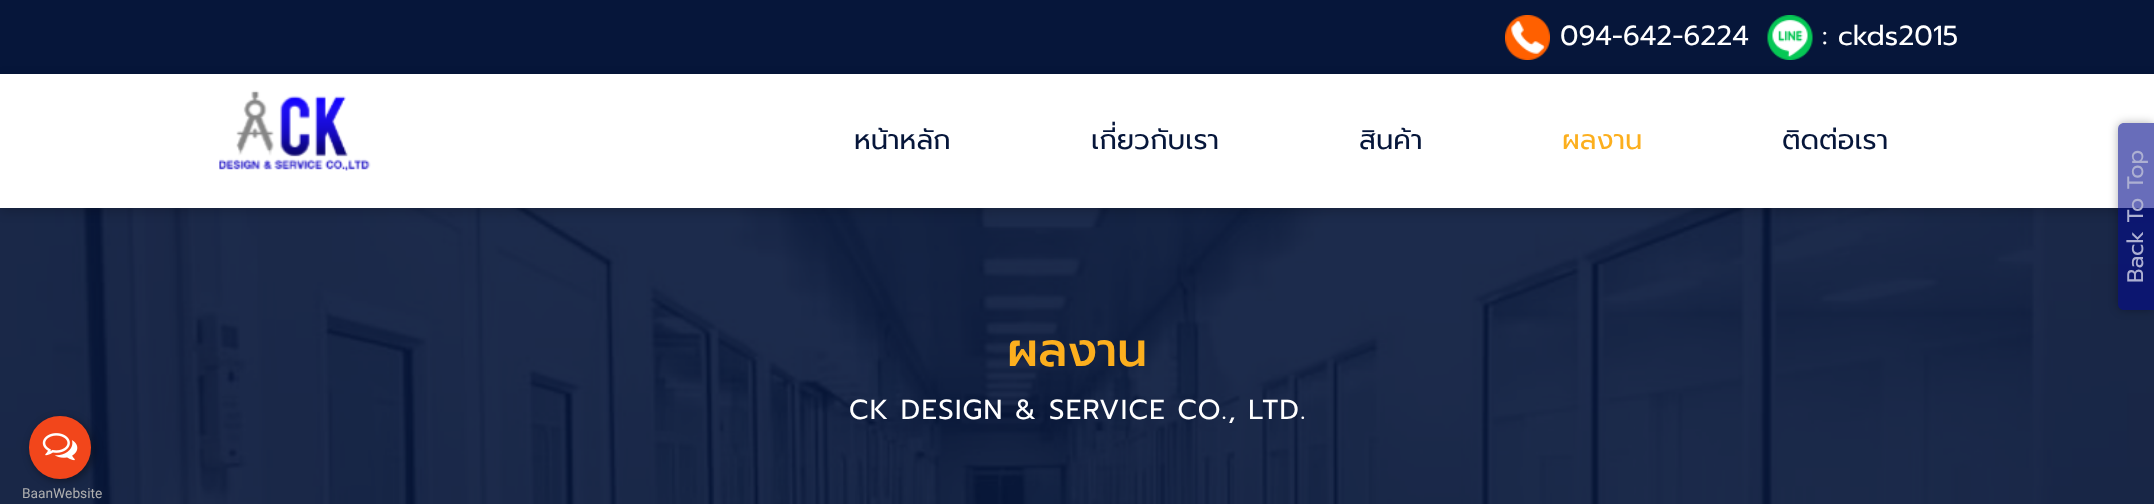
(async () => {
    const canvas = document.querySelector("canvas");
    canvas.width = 2154;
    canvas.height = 504;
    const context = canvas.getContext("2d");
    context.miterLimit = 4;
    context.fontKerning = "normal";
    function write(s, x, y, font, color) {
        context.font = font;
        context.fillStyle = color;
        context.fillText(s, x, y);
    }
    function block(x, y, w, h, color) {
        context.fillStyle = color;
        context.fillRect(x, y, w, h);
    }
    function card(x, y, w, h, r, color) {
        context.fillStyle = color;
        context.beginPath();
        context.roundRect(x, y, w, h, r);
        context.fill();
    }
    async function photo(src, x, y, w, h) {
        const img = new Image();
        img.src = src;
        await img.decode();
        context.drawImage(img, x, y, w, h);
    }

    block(0, 0, 2154, 504, "rgb(6, 22, 58)");
    await photo("media/1.png", 1505, 15, 45, 45);
    write("094-642-6224", 1560, 45, "27.5px Prompt", "rgb(255, 255, 255)");
    await photo("media/2.png", 1767, 15, 46, 45);
    write(": ckds2015", 1822, 45, "27.5px Prompt", "rgb(255, 255, 255)");
    await photo("media/4.png", 0, 208, 2154, 296);
    context.fillStyle = "rgba(0, 0, 0, 0.2)";
    context.filter = "blur(6px)";
    context.beginPath();
    context.rect(0, 78, 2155, 133);
    context.fill();
    context.filter = "none";
    block(0, 74, 2154, 134, "rgb(255, 255, 255)");
    await photo("media/3.png", 219, 90, 152, 81);
    write("หน้าหลัก", 854, 149, "27.5px Prompt", "rgb(6, 22, 58)");
    write("เกี่ยวกับเรา", 1091, 149, "27.5px Prompt", "rgb(6, 22, 58)");
    write("สินค้า", 1359, 149, "27.5px Prompt", "rgb(6, 22, 58)");
    write("ผลงาน", 1562, 149, "27.5px Prompt", "rgb(252, 175, 30)");
    write("ติดต่อเรา", 1782, 149, "27.5px Prompt", "rgb(6, 22, 58)");
    context.save();
    context.beginPath();
    context.moveTo(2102, 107);
    context.lineTo(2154, 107);
    context.lineTo(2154, 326);
    context.lineTo(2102, 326);
    context.closePath();
    context.moveTo(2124, 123);
    context.lineTo(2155, 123);
    context.lineTo(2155, 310);
    context.lineTo(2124, 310);
    context.bezierCurveTo(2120.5, 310, 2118, 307.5, 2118, 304);
    context.lineTo(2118, 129);
    context.bezierCurveTo(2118, 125.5, 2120.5, 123, 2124, 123);
    context.closePath();
    context.clip("evenodd");
    context.fillStyle = "rgba(0, 0, 0, 0.3)";
    context.filter = "blur(5px)";
    context.beginPath();
    context.roundRect(2118, 123, 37, 187, 6);
    context.fill();
    context.filter = "none";
    context.restore();
    context.fillStyle = "rgba(4, 12, 140, 0.6)";
    context.beginPath();
    context.moveTo(2124, 123);
    context.lineTo(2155, 123);
    context.lineTo(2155, 310);
    context.lineTo(2124, 310);
    context.bezierCurveTo(2120.5, 310, 2118, 307.5, 2118, 304);
    context.lineTo(2118, 129);
    context.bezierCurveTo(2118, 125.5, 2120.5, 123, 2124, 123);
    context.closePath();
    context.fill();
    context.font = "22.5px Prompt";
    context.fillStyle = "rgb(173, 176, 210)";
    context.save();
    context.translate(2143, 283);
    context.rotate(-90 * Math.PI / 180);
    context.fillText("Back To Top", 0, 0);
    context.restore();
    write("ผลงาน", 1007, 366, "500 47.5px Prompt", "rgb(252, 175, 30)");
    context.letterSpacing = "1.25px";
    write("CK DESIGN & SERVICE CO., LTD.", 849, 419, "27.5px Prompt", "rgb(255, 255, 255)");
    context.fillStyle = "rgba(0, 0, 0, 0.4)";
    context.filter = "blur(4px)";
    context.beginPath();
    context.roundRect(31, 419, 63, 62, 31);
    context.fill();
    context.filter = "none";
    card(29, 416, 62, 63, 31, "rgb(242, 70, 27)");
    await photo("media/5.png", 42, 433, 36, 28);
    context.letterSpacing = "0px";
    write("BaanWebsite", 22, 498, "13.75px Roboto", "rgb(175, 175, 175)");
})();
